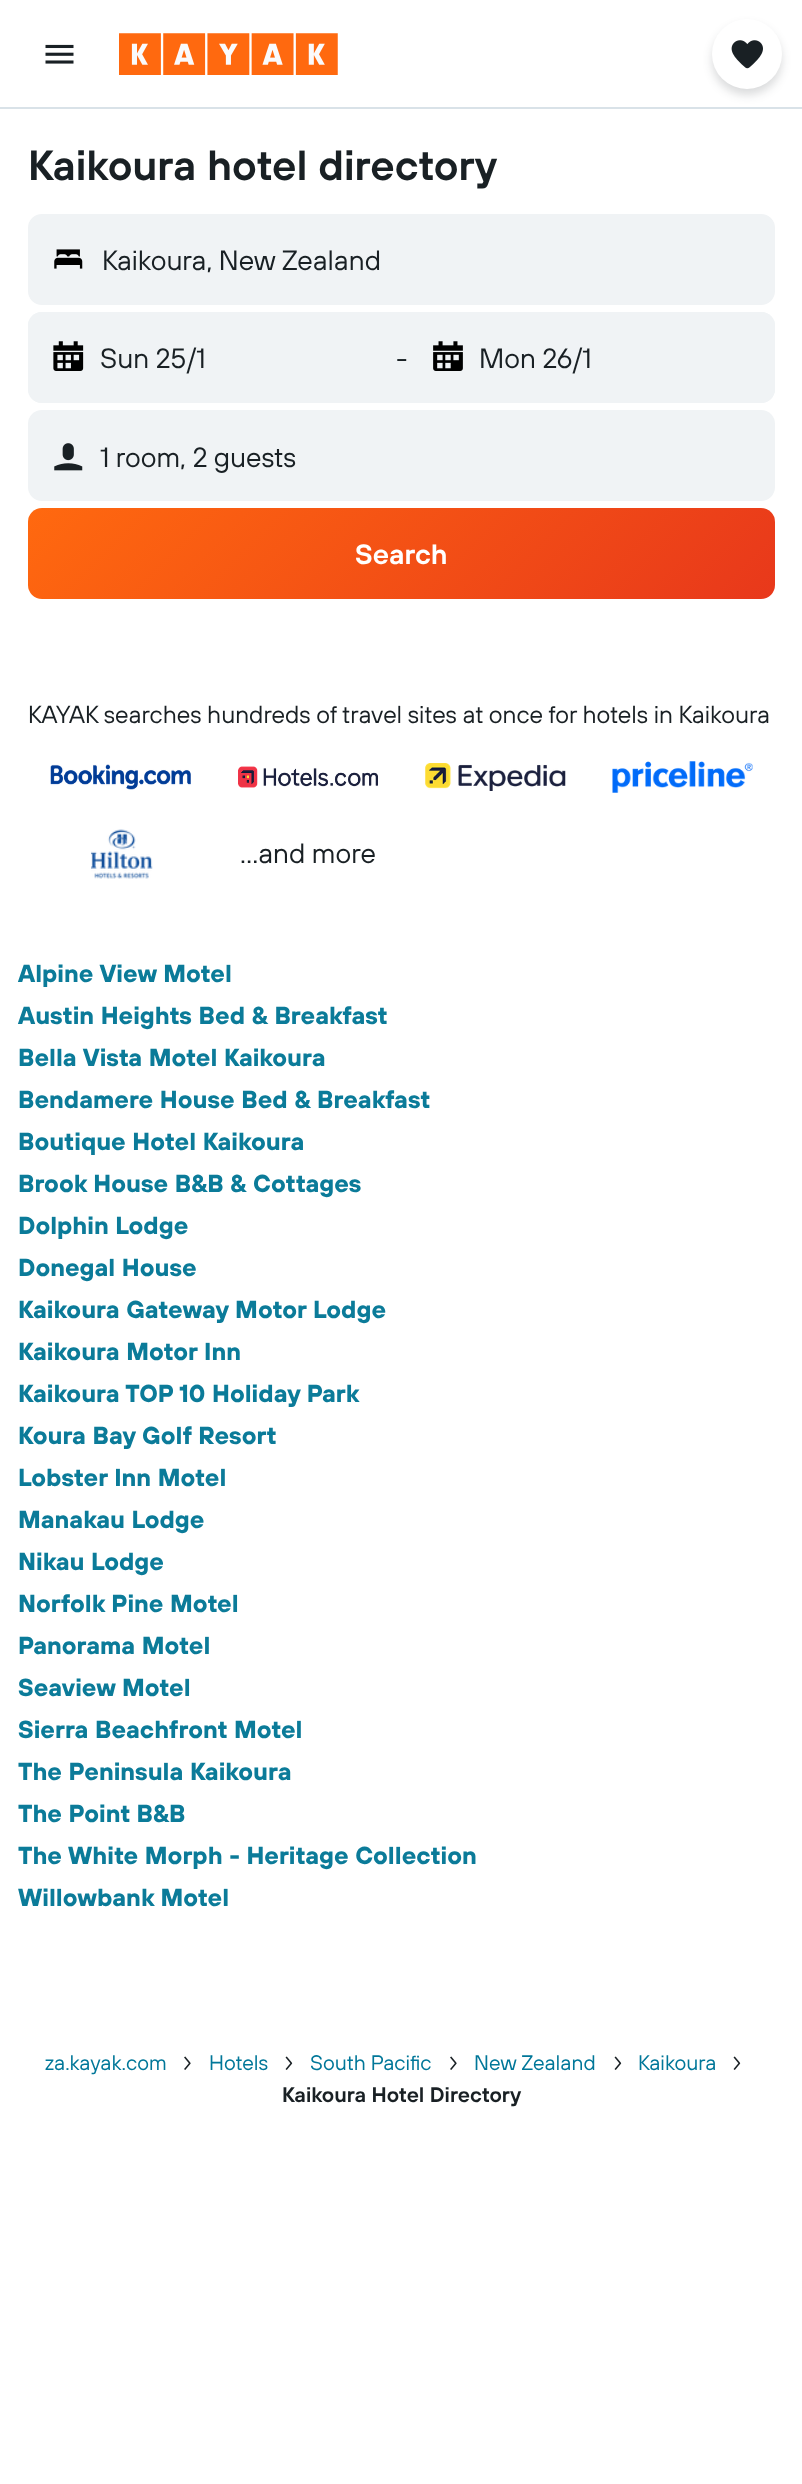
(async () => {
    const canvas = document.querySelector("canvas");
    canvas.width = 802;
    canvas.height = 2484;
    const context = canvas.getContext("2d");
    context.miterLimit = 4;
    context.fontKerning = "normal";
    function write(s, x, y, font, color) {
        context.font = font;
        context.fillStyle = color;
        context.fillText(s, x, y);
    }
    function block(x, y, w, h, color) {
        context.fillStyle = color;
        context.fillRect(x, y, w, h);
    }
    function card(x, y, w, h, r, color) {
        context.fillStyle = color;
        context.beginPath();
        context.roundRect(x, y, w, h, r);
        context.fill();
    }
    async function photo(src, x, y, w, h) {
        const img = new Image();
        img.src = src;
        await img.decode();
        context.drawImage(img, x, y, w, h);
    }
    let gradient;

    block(0, 0, 802, 2484, "rgb(255, 255, 255)");
    block(0, 107, 802, 2, "rgb(217, 226, 232)");
    await photo("media/1.png", 45, 44, 29, 20);
    await photo("media/2.png", 119, 33, 219, 42);
    context.fillStyle = "rgba(25, 32, 36, 0.16)";
    context.filter = "blur(5px)";
    context.beginPath();
    context.roundRect(712, 25, 70, 70, 35);
    context.fill();
    context.filter = "none";
    context.fillStyle = "rgb(255, 255, 255)";
    context.beginPath();
    context.arc(747, 54, 35, 0, Math.PI * 2);
    context.fill();
    await photo("media/3.png", 731, 40, 32, 29);
    write("Kaikoura hotel directory", 28, 180, "600 42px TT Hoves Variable", "rgb(25, 32, 36)");
    context.fillStyle = "rgb(240, 243, 245)";
    context.beginPath();
    context.roundRect(29, 215, 745, 89, 13);
    context.fill();
    context.strokeStyle = "rgb(240, 243, 245)";
    context.lineWidth = 2;
    context.stroke();
    await photo("media/4.png", 54, 249, 29, 20);
    write("Kaikoura, New Zealand", 102, 270, "28px TT Hoves Variable", "rgb(25, 32, 36)");
    card(28, 312, 747, 91, 14, "rgb(240, 243, 245)");
    card(28, 312, 368, 91, 14, "rgb(240, 243, 245)");
    await photo("media/5.png", 53, 341, 31, 30);
    write("Sun 25/1", 100, 368, "28px TT Hoves Variable", "rgb(25, 32, 36)");
    write("-", 396, 368, "28px TT Hoves Variable", "rgb(25, 32, 36)");
    card(408, 312, 367, 91, 14, "rgb(240, 243, 245)");
    await photo("media/6.png", 433, 341, 30, 30);
    write("Mon 26/1", 479, 368, "28px TT Hoves Variable", "rgb(25, 32, 36)");
    card(28, 410, 747, 91, 14, "rgb(240, 243, 245)");
    await photo("media/7.png", 54, 443, 29, 28);
    write("1 room, 2 guests", 100, 467, "28px TT Hoves Variable", "rgb(25, 32, 36)");
    gradient = context.createLinearGradient(192, 343, 611, 763);
    gradient.addColorStop(0, "rgb(255, 105, 15)");
    gradient.addColorStop(1, "rgb(232, 56, 27)");
    context.fillStyle = gradient;
    context.beginPath();
    context.roundRect(28, 508, 747, 91, 14);
    context.fill();
    write("Search", 355, 564, "600 28px TT Hoves Variable", "rgb(255, 255, 255)");
    write("KAYAK searches hundreds of travel sites at once for hotels in Kaikoura", 28, 723, "24.5px TT Hoves Variable", "rgb(25, 32, 36)");
    await photo("media/8.png", 50, 764, 141, 26);
    await photo("media/9.png", 238, 766, 140, 22);
    await photo("media/10.png", 425, 763, 141, 28);
    await photo("media/11.png", 612, 761, 141, 32);
    await photo("media/12.png", 91, 829, 62, 50);
    write("...and more", 240, 863, "28px TT Hoves Variable", "rgb(25, 32, 36)");
    write("Alpine View Motel", 18, 982, "bold 24.5px TT Hoves Variable", "rgb(11, 123, 153)");
    write("Austin Heights Bed & Breakfast", 18, 1024, "bold 24.5px TT Hoves Variable", "rgb(11, 123, 153)");
    write("Bella Vista Motel Kaikoura", 18, 1066, "bold 24.5px TT Hoves Variable", "rgb(11, 123, 153)");
    write("Bendamere House Bed & Breakfast", 18, 1108, "bold 24.5px TT Hoves Variable", "rgb(11, 123, 153)");
    write("Boutique Hotel Kaikoura", 18, 1150, "bold 24.5px TT Hoves Variable", "rgb(11, 123, 153)");
    write("Brook House B&B & Cottages", 18, 1192, "bold 24.5px TT Hoves Variable", "rgb(11, 123, 153)");
    write("Dolphin Lodge", 18, 1234, "bold 24.5px TT Hoves Variable", "rgb(11, 123, 153)");
    write("Donegal House", 18, 1276, "bold 24.5px TT Hoves Variable", "rgb(11, 123, 153)");
    write("Kaikoura Gateway Motor Lodge", 18, 1318, "bold 24.5px TT Hoves Variable", "rgb(11, 123, 153)");
    write("Kaikoura Motor Inn", 18, 1360, "bold 24.5px TT Hoves Variable", "rgb(11, 123, 153)");
    write("Kaikoura TOP 10 Holiday Park", 18, 1402, "bold 24.5px TT Hoves Variable", "rgb(11, 123, 153)");
    write("Koura Bay Golf Resort", 18, 1444, "bold 24.5px TT Hoves Variable", "rgb(11, 123, 153)");
    write("Lobster Inn Motel", 18, 1486, "bold 24.5px TT Hoves Variable", "rgb(11, 123, 153)");
    write("Manakau Lodge", 18, 1528, "bold 24.5px TT Hoves Variable", "rgb(11, 123, 153)");
    write("Nikau Lodge", 18, 1570, "bold 24.5px TT Hoves Variable", "rgb(11, 123, 153)");
    write("Norfolk Pine Motel", 18, 1612, "bold 24.5px TT Hoves Variable", "rgb(11, 123, 153)");
    write("Panorama Motel", 18, 1654, "bold 24.5px TT Hoves Variable", "rgb(11, 123, 153)");
    write("Seaview Motel", 18, 1696, "bold 24.5px TT Hoves Variable", "rgb(11, 123, 153)");
    write("Sierra Beachfront Motel", 18, 1738, "bold 24.5px TT Hoves Variable", "rgb(11, 123, 153)");
    write("The Peninsula Kaikoura", 18, 1780, "bold 24.5px TT Hoves Variable", "rgb(11, 123, 153)");
    write("The Point B&B", 18, 1822, "bold 24.5px TT Hoves Variable", "rgb(11, 123, 153)");
    write("The White Morph - Heritage Collection", 18, 1864, "bold 24.5px TT Hoves Variable", "rgb(11, 123, 153)");
    write("Willowbank Motel", 18, 1906, "bold 24.5px TT Hoves Variable", "rgb(11, 123, 153)");
    write("za.kayak.com", 45, 2070, "21px TT Hoves Variable", "rgb(0, 119, 153)");
    await photo("media/13.png", 184, 2056, 7, 14);
    write("Hotels", 209, 2070, "21px TT Hoves Variable", "rgb(0, 119, 153)");
    await photo("media/14.png", 285, 2056, 8, 14);
    write("South Pacific", 310, 2070, "21px TT Hoves Variable", "rgb(0, 119, 153)");
    await photo("media/13.png", 450, 2056, 7, 14);
    write("New Zealand", 474, 2070, "21px TT Hoves Variable", "rgb(0, 119, 153)");
    await photo("media/14.png", 614, 2056, 8, 14);
    write("Kaikoura", 638, 2070, "21px TT Hoves Variable", "rgb(0, 119, 153)");
    await photo("media/14.png", 733, 2056, 8, 14);
    write("Kaikoura Hotel Directory", 282, 2102, "600 21px TT Hoves Variable", "rgb(25, 32, 36)");
})();
